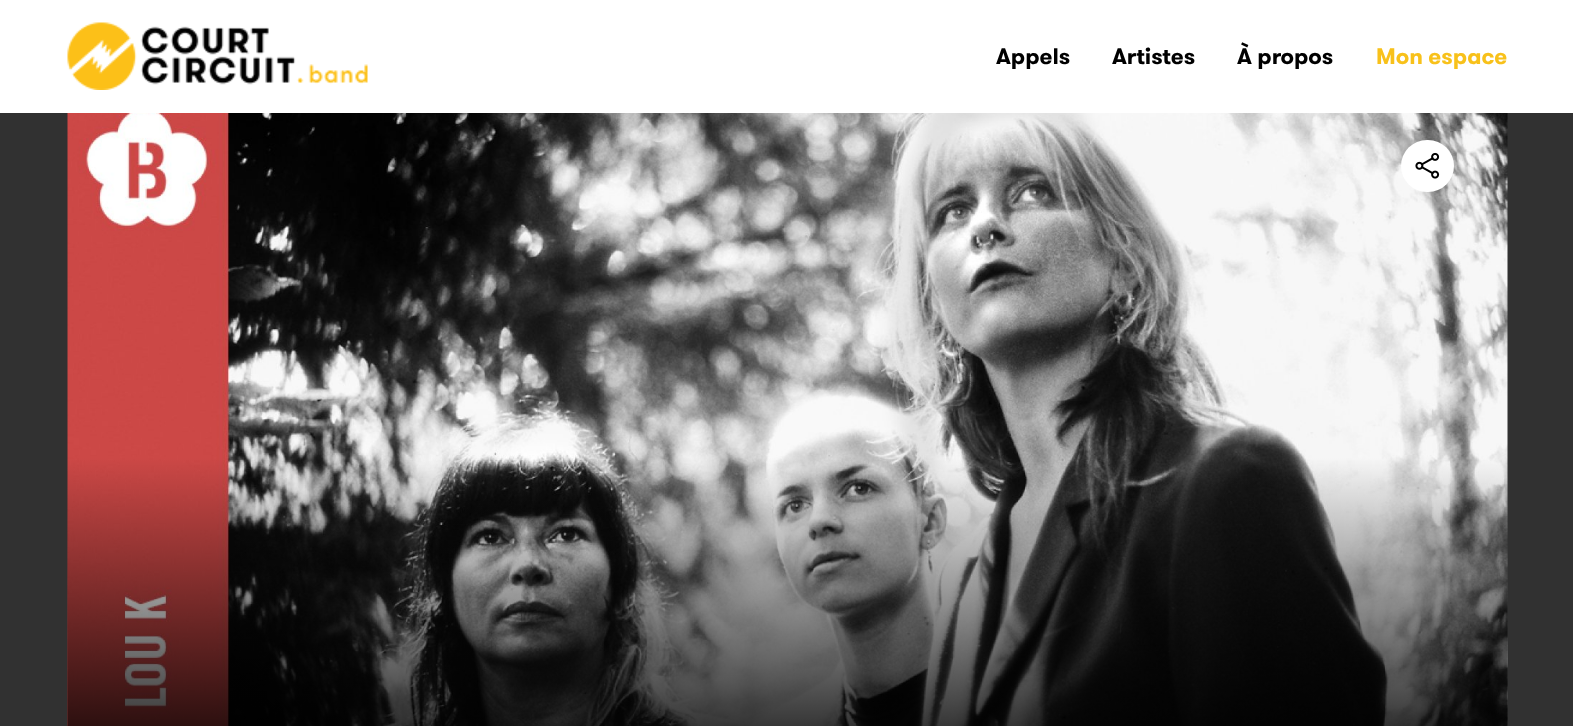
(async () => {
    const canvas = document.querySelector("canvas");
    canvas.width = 1573;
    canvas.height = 726;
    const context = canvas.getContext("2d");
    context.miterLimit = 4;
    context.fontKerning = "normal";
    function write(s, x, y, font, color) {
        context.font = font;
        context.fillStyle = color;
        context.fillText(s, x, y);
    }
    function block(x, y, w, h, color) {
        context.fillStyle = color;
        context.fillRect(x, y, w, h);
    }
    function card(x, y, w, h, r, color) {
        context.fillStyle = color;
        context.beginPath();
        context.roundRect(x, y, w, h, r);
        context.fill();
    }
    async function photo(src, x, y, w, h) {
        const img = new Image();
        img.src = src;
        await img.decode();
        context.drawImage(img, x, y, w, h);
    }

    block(0, 0, 1573, 726, "rgb(49, 49, 49)");
    block(0, 0, 1573, 113, "rgb(255, 255, 255)");
    await photo("media/1.png", 67, 22, 301, 68);
    write("Appels", 996, 64, "bold 22.5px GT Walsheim", "rgb(0, 0, 0)");
    write("Artistes", 1112, 64, "bold 22.5px GT Walsheim", "rgb(0, 0, 0)");
    write("À propos", 1237, 64, "bold 22.5px GT Walsheim", "rgb(0, 0, 0)");
    write("Mon espace", 1376, 64, "bold 22.5px GT Walsheim", "rgb(248, 193, 26)");
    await photo("media/2.png", 67, 113, 1441, 613);
    card(1401, 140, 53, 52, 26, "rgb(255, 255, 255)");
    await photo("media/3.png", 1415, 152, 25, 27);
})();
